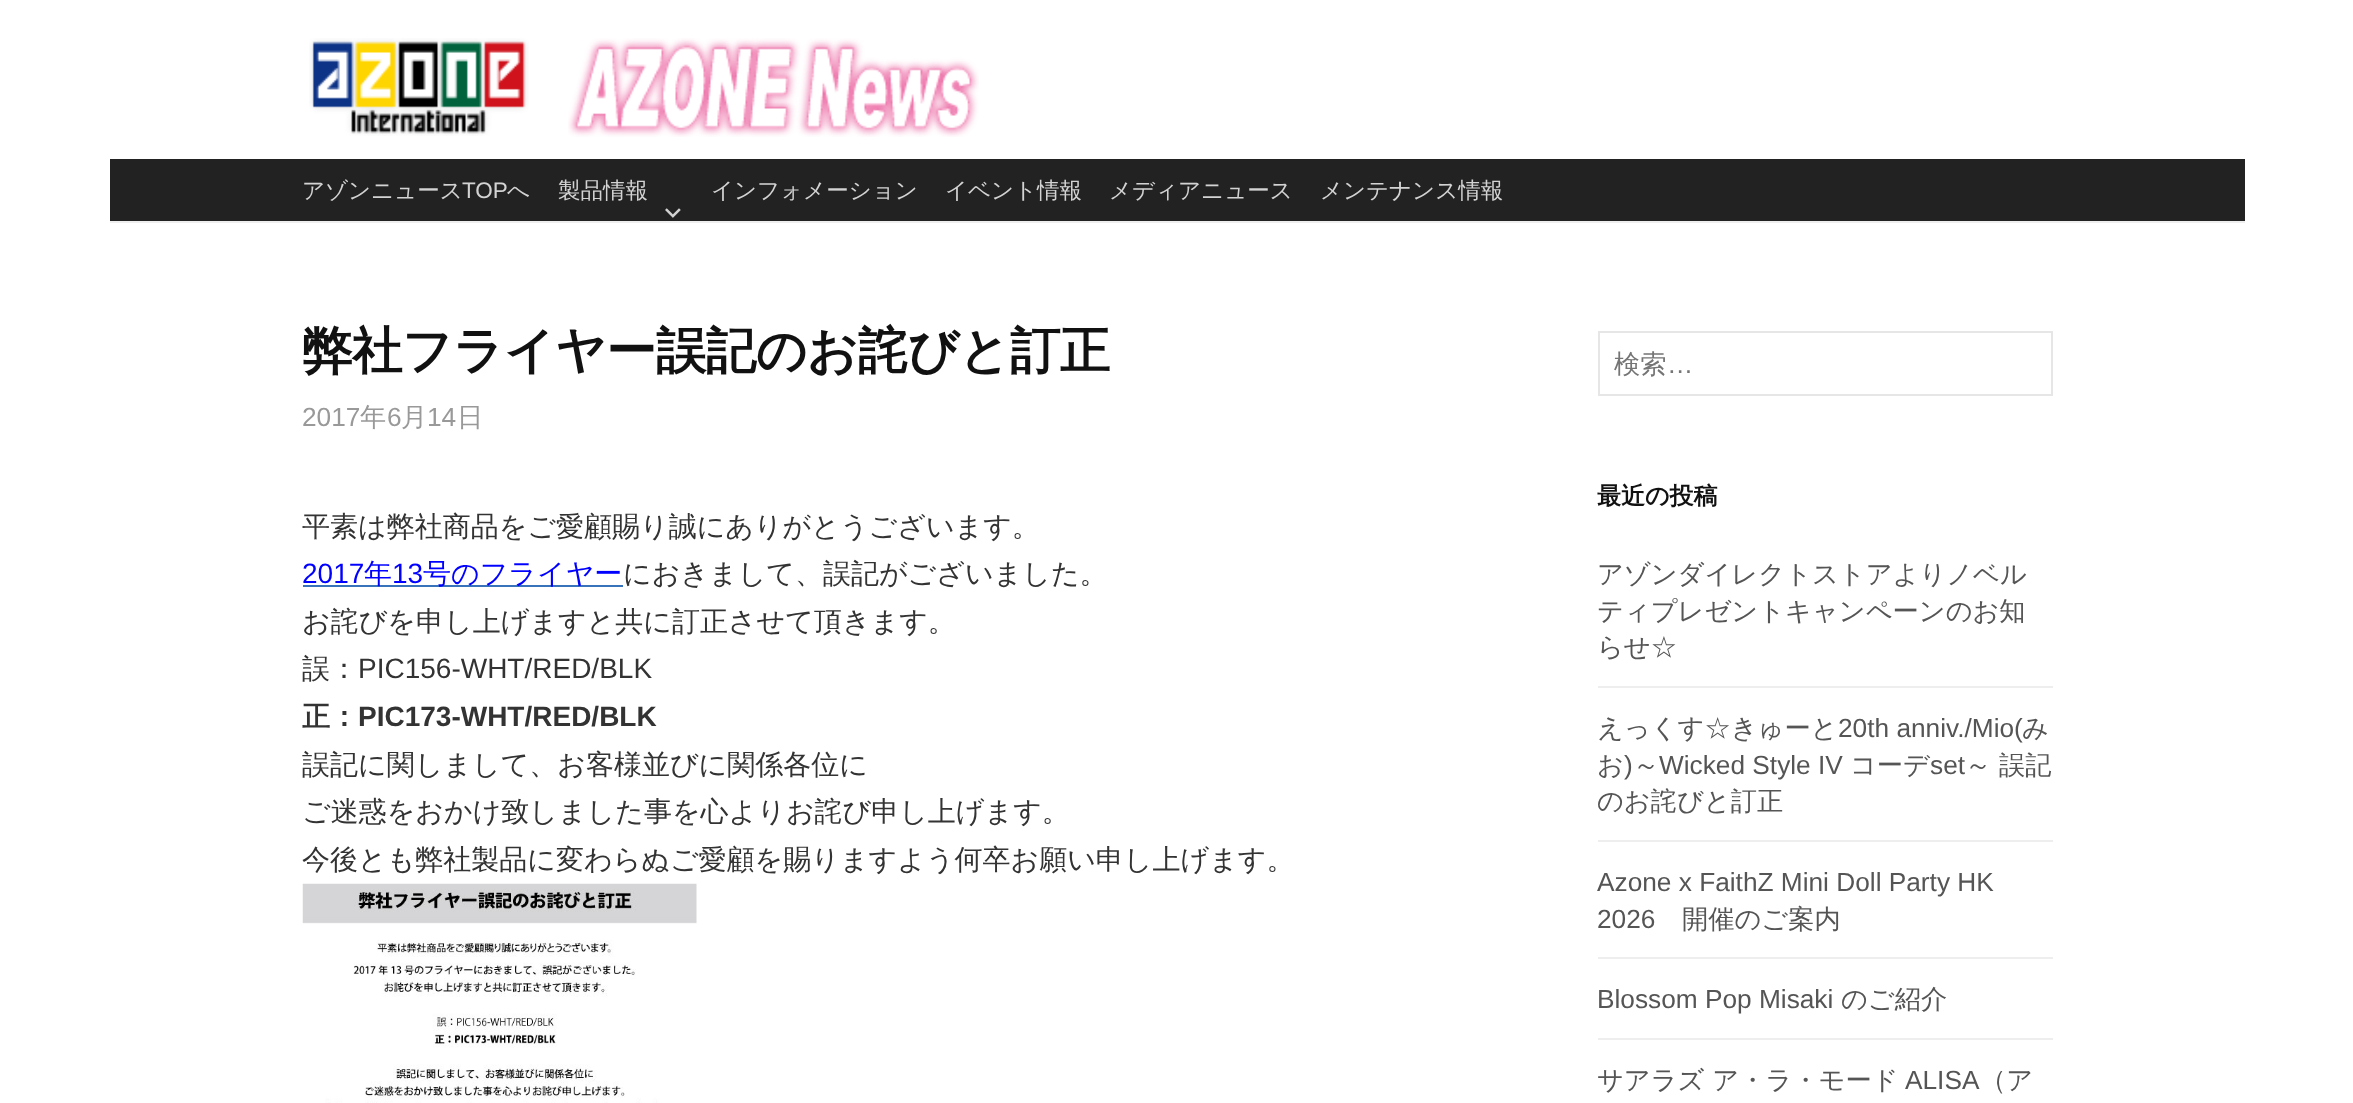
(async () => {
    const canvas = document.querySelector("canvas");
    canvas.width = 2353;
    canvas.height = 1103;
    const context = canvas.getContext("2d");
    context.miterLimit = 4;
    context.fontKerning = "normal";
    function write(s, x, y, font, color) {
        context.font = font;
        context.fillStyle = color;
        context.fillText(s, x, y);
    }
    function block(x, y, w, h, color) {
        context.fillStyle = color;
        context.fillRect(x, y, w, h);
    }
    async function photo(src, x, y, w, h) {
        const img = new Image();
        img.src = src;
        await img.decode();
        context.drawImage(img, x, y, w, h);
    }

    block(0, 0, 2353, 1103, "rgb(255, 255, 255)");
    block(110, 221, 2135, 2, "rgb(238, 238, 238)");
    await photo("media/1.png", 309, 38, 220, 98);
    await photo("media/2.png", 568, 38, 411, 99);
    block(110, 159, 2135, 62, "rgb(34, 34, 34)");
    write("アゾンニュース", 302, 198, "500 22.5px WenQuanYi Zen Hei", "rgb(211, 211, 211)");
    write("TOP", 462, 198, "22.5px Liberation Sans", "rgb(211, 211, 211)");
    write("へ", 507, 198, "500 22.5px WenQuanYi Zen Hei", "rgb(211, 211, 211)");
    write("製品情報", 558, 198, "500 22.5px WenQuanYi Zen Hei", "rgb(211, 211, 211)");
    await photo("media/3.png", 665, 208, 16, 10);
    write("インフォメーション", 711, 198, "500 22.5px WenQuanYi Zen Hei", "rgb(211, 211, 211)");
    write("イベント情報", 945, 198, "500 22.5px WenQuanYi Zen Hei", "rgb(211, 211, 211)");
    write("メディアニュース", 1109, 198, "500 22.5px WenQuanYi Zen Hei", "rgb(211, 211, 211)");
    write("メンテナンス情報", 1320, 198, "500 22.5px WenQuanYi Zen Hei", "rgb(211, 211, 211)");
    context.letterSpacing = "-0.5px";
    write("弊社フライヤー誤記のお詫びと訂正", 302, 368, "bold 50.4px WenQuanYi Zen Hei", "rgb(17, 17, 17)");
    context.letterSpacing = "0px";
    write("2017", 302, 426, "26.25px Liberation Sans", "rgb(153, 153, 153)");
    write("年", 360, 426, "500 26.25px WenQuanYi Zen Hei", "rgb(153, 153, 153)");
    write("6", 387, 426, "26.25px Liberation Sans", "rgb(153, 153, 153)");
    write("月", 401, 426, "500 26.25px WenQuanYi Zen Hei", "rgb(153, 153, 153)");
    write("14", 427, 426, "26.25px Liberation Sans", "rgb(153, 153, 153)");
    write("日", 457, 426, "500 26.25px WenQuanYi Zen Hei", "rgb(153, 153, 153)");
    write("平素は弊社商品をご愛顧賜り誠にありがとうございます。", 302, 536, "500 28px WenQuanYi Zen Hei", "rgb(51, 51, 51)");
    write("2017", 302, 583, "28px Liberation Sans", "rgb(0, 0, 255)");
    block(303, 585, 320, 2, "rgb(56, 114, 184)");
    write("年", 364, 583, "500 28px WenQuanYi Zen Hei", "rgb(0, 0, 255)");
    write("13", 392, 583, "28px Liberation Sans", "rgb(0, 0, 255)");
    write("号のフライヤー", 423, 583, "500 28px WenQuanYi Zen Hei", "rgb(0, 0, 255)");
    write("におきまして、誤記がございました。", 623, 583, "500 28px WenQuanYi Zen Hei", "rgb(51, 51, 51)");
    write("お詫びを申し上げますと共に訂正させて頂きます。", 302, 631, "500 28px WenQuanYi Zen Hei", "rgb(51, 51, 51)");
    write("誤：", 302, 678, "500 28px WenQuanYi Zen Hei", "rgb(51, 51, 51)");
    write("PIC156-WHT/RED/BLK", 358, 678, "28px Liberation Sans", "rgb(51, 51, 51)");
    write("正：", 302, 726, "bold 28px WenQuanYi Zen Hei", "rgb(51, 51, 51)");
    write("PIC173-WHT/RED/BLK", 358, 726, "bold 28px Liberation Sans", "rgb(51, 51, 51)");
    write("誤記に関しまして、お客様並びに関係各位に", 302, 774, "500 28px WenQuanYi Zen Hei", "rgb(51, 51, 51)");
    write("ご迷惑をおかけ致しました事を心よりお詫び申し上げます。", 302, 821, "500 28px WenQuanYi Zen Hei", "rgb(51, 51, 51)");
    write("今後とも弊社製品に変わらぬご愛顧を賜りますよう何卒お願い申し上げます。", 302, 869, "500 28px WenQuanYi Zen Hei", "rgb(51, 51, 51)");
    await photo("media/4.png", 302, 883, 395, 220);
    context.strokeStyle = "rgb(230, 230, 230)";
    context.lineWidth = 2;
    context.strokeRect(1599, 332, 453, 63);
    write("検索", 1614, 373, "500 26.25px WenQuanYi Zen Hei", "rgb(117, 117, 117)");
    write("…", 1667, 373, "26.25px Liberation Sans", "rgb(117, 117, 117)");
    write("最近の投稿", 1597, 504, "bold 24px WenQuanYi Zen Hei", "rgb(17, 17, 17)");
    write("アゾンダイレクトストアよりノベル", 1597, 583, "500 26.25px WenQuanYi Zen Hei", "rgb(85, 85, 85)");
    write("ティプレゼントキャンペーンのお知", 1597, 620, "500 26.25px WenQuanYi Zen Hei", "rgb(85, 85, 85)");
    write("らせ☆", 1597, 656, "500 26.25px WenQuanYi Zen Hei", "rgb(85, 85, 85)");
    block(1598, 686, 455, 2, "rgb(238, 238, 238)");
    write("えっくす☆きゅーと", 1597, 737, "500 26.25px WenQuanYi Zen Hei", "rgb(85, 85, 85)");
    write("20th anniv./Mio(", 1838, 737, "26.25px Liberation Sans", "rgb(85, 85, 85)");
    write("み", 2022, 737, "500 26.25px WenQuanYi Zen Hei", "rgb(85, 85, 85)");
    write("お", 1597, 774, "500 26.25px WenQuanYi Zen Hei", "rgb(85, 85, 85)");
    write(")", 1624, 774, "26.25px Liberation Sans", "rgb(85, 85, 85)");
    write("～", 1633, 774, "500 26.25px WenQuanYi Zen Hei", "rgb(85, 85, 85)");
    write("Wicked Style IV", 1659, 774, "26.25px Liberation Sans", "rgb(85, 85, 85)");
    write("コーデ", 1850, 774, "500 26.25px WenQuanYi Zen Hei", "rgb(85, 85, 85)");
    write("set", 1930, 774, "26.25px Liberation Sans", "rgb(85, 85, 85)");
    write("～", 1965, 774, "500 26.25px WenQuanYi Zen Hei", "rgb(85, 85, 85)");
    write("誤記", 1999, 774, "500 26.25px WenQuanYi Zen Hei", "rgb(85, 85, 85)");
    write("のお詫びと訂正", 1597, 810, "500 26.25px WenQuanYi Zen Hei", "rgb(85, 85, 85)");
    block(1598, 840, 455, 2, "rgb(238, 238, 238)");
    write("Azone x FaithZ Mini Doll Party HK", 1597, 891, "26.25px Liberation Sans", "rgb(85, 85, 85)");
    write("2026", 1597, 928, "26.25px Liberation Sans", "rgb(85, 85, 85)");
    write("開催のご案内", 1682, 928, "500 26.25px WenQuanYi Zen Hei", "rgb(85, 85, 85)");
    block(1598, 957, 455, 2, "rgb(238, 238, 238)");
    write("Blossom Pop Misaki", 1597, 1008, "26.25px Liberation Sans", "rgb(85, 85, 85)");
    write("のご紹介", 1841, 1008, "500 26.25px WenQuanYi Zen Hei", "rgb(85, 85, 85)");
    block(1598, 1038, 455, 2, "rgb(238, 238, 238)");
    write("サアラズ ア・ラ・モード", 1597, 1089, "500 26.25px WenQuanYi Zen Hei", "rgb(85, 85, 85)");
    write("ALISA", 1905, 1089, "26.25px Liberation Sans", "rgb(85, 85, 85)");
    write("（ア", 1980, 1089, "500 26.25px WenQuanYi Zen Hei", "rgb(85, 85, 85)");
})();
